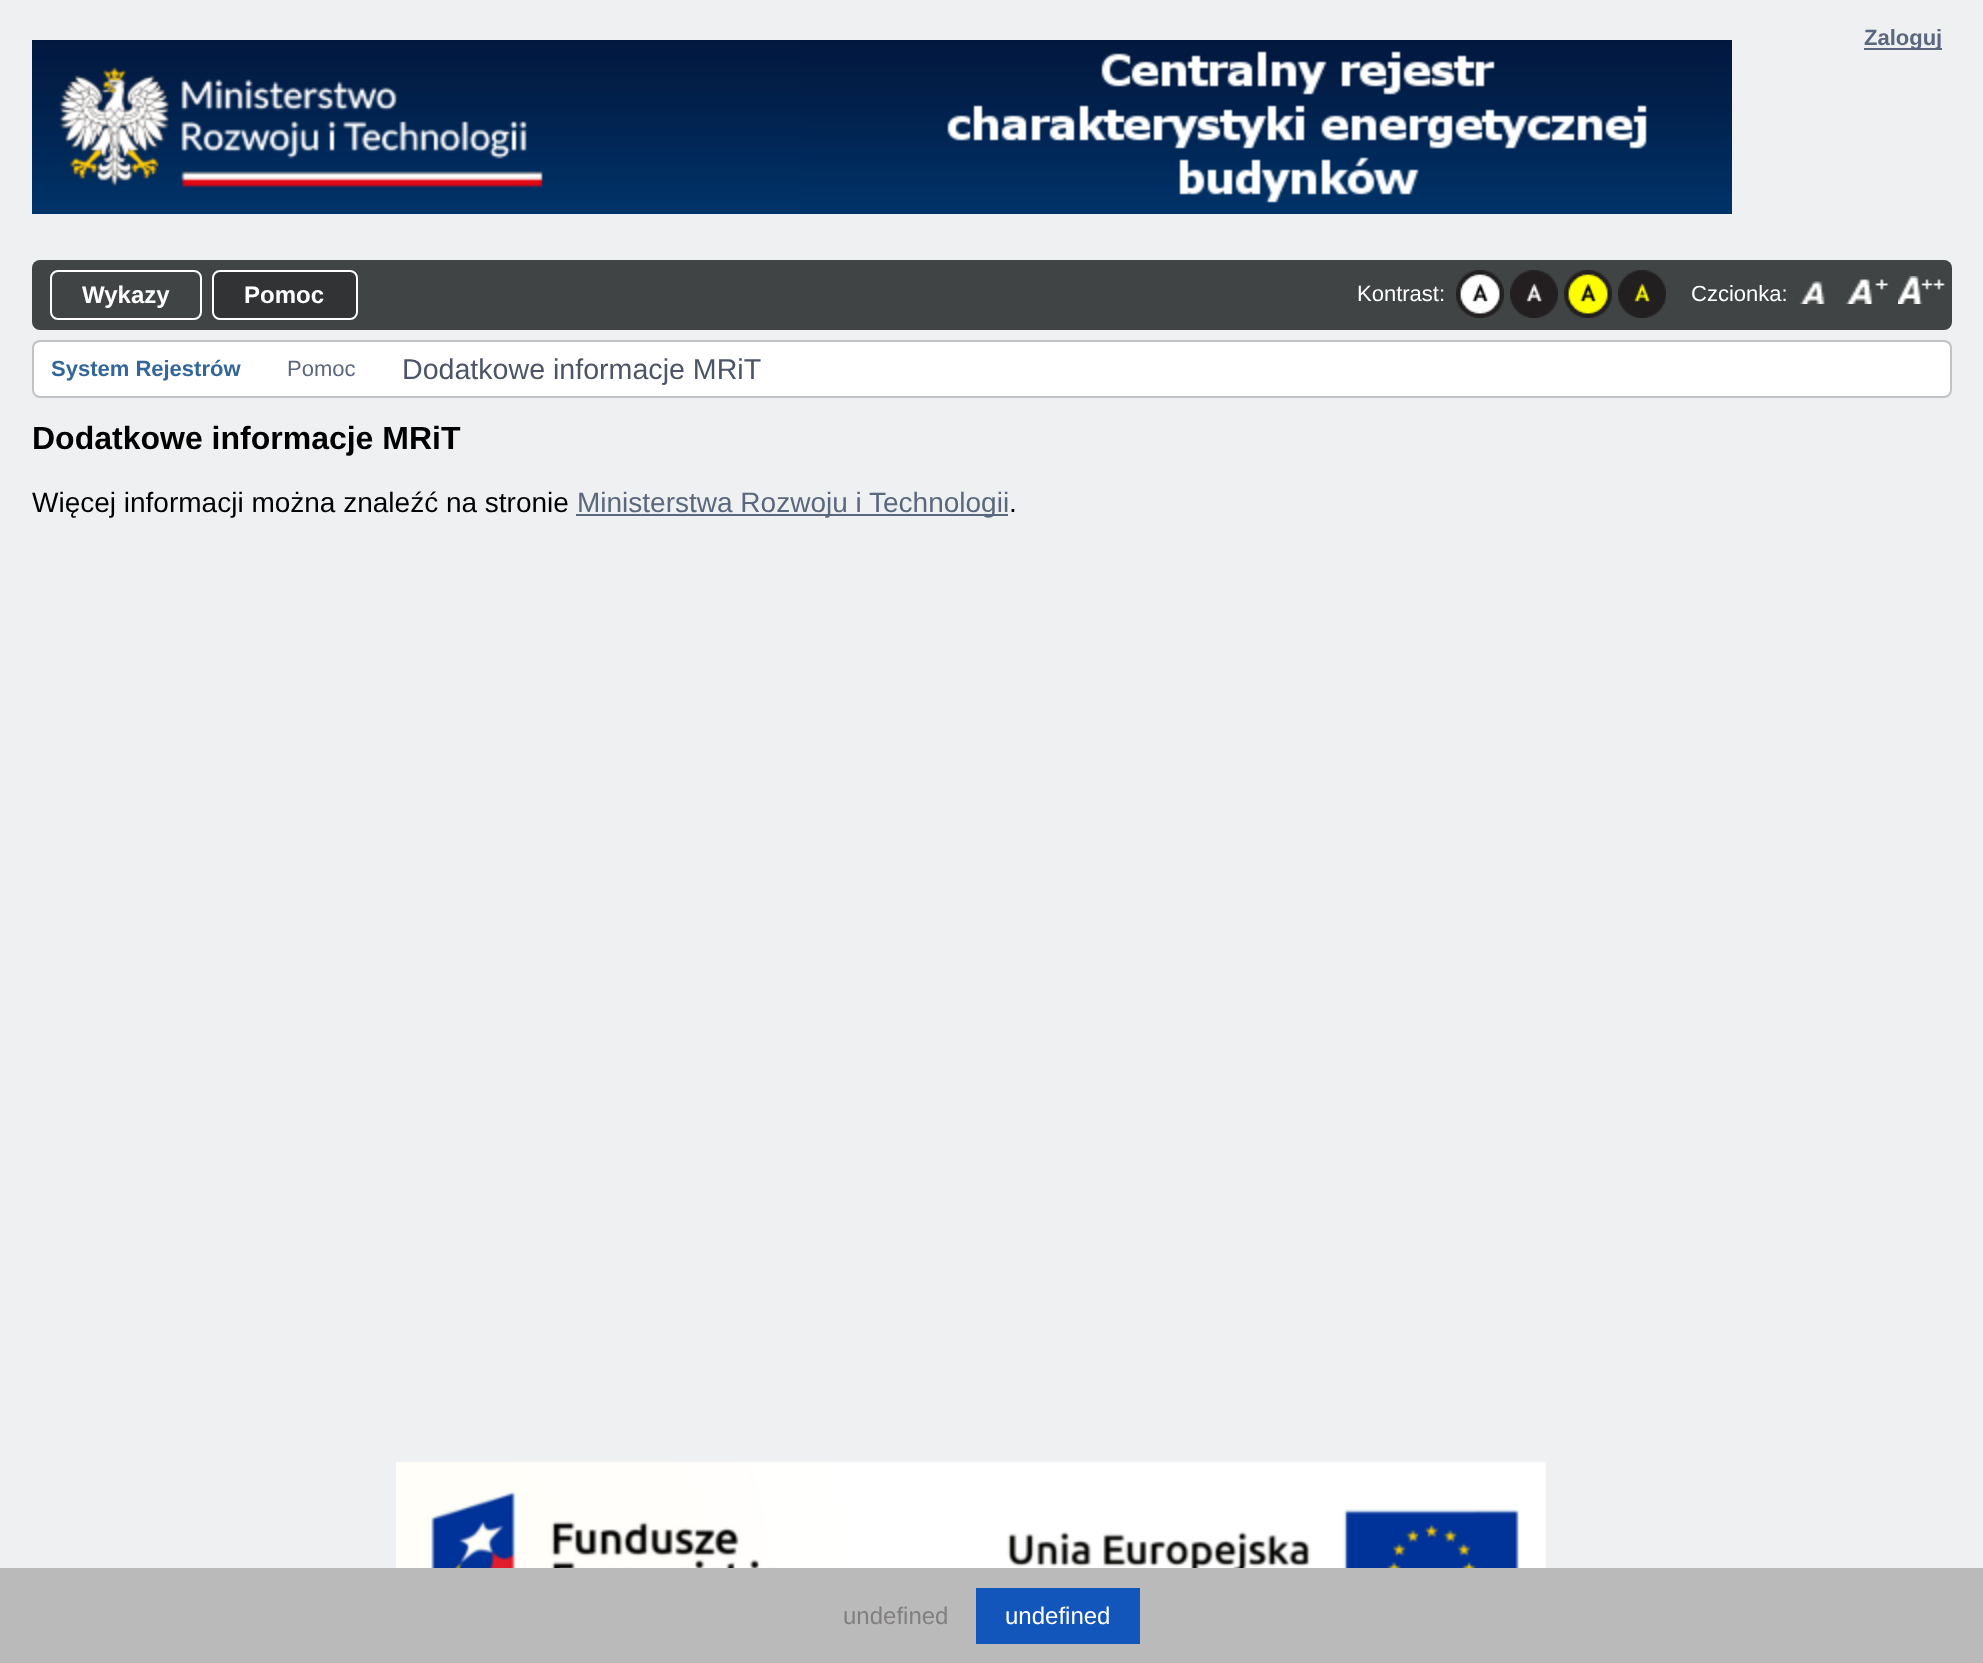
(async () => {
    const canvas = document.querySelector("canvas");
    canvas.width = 1983;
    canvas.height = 1663;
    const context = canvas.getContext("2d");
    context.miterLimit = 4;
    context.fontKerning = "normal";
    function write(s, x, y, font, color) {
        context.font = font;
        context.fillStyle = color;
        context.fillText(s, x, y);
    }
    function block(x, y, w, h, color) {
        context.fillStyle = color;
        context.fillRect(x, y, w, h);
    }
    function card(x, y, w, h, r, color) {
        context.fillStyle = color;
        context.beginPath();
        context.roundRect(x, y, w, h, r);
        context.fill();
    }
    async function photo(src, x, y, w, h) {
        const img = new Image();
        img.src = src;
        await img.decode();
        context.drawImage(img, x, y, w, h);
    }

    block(0, 0, 1983, 1663, "rgb(238, 240, 242)");
    await photo("media/1.png", 32, 40, 1700, 174);
    block(1864, 48, 78, 2, "rgb(91, 103, 125)");
    write("Zaloguj", 1864, 45, "bold 22px Liberation Sans", "rgb(91, 103, 125)");
    card(32, 260, 1920, 70, 8, "rgb(65, 68, 69)");
    context.beginPath();
    context.roundRect(51, 271, 150, 48, 7);
    context.strokeStyle = "rgb(255, 255, 255)";
    context.lineWidth = 2;
    context.stroke();
    write("Wykazy", 82, 303, "bold 24px Liberation Sans", "rgb(255, 255, 255)");
    context.fillStyle = "rgb(49, 51, 52)";
    context.beginPath();
    context.roundRect(213, 271, 144, 48, 7);
    context.fill();
    context.stroke();
    write("Pomoc", 244, 303, "bold 24px Liberation Sans", "rgb(255, 255, 255)");
    write("Kontrast:", 1357, 301, "22px Liberation Sans", "rgb(255, 255, 255)");
    await photo("media/2.png", 1456, 270, 48, 48);
    await photo("media/3.png", 1510, 270, 48, 48);
    await photo("media/4.png", 1564, 270, 48, 48);
    await photo("media/5.png", 1618, 270, 48, 48);
    write("Czcionka:", 1691, 301, "22px Liberation Sans", "rgb(255, 255, 255)");
    await photo("media/6.png", 1799, 281, 26, 23);
    await photo("media/7.png", 1845, 279, 44, 25);
    await photo("media/8.png", 1898, 276, 47, 28);
    context.beginPath();
    context.roundRect(33, 341, 1918, 56, 7);
    context.fill();
    context.strokeStyle = "rgb(192, 194, 197)";
    context.stroke();
    write("System Rejestrów", 51, 376, "bold 22px Liberation Sans", "rgb(51, 102, 153)");
    write("Pomoc", 287, 376, "22px Liberation Sans", "rgb(91, 103, 125)");
    write("Dodatkowe informacje MRiT", 402, 379, "28.6px Liberation Sans", "rgb(75, 85, 103)");
    write("Dodatkowe informacje MRiT", 32, 449, "bold 32px Liberation Sans", "rgb(0, 0, 0)");
    write("Więcej informacji można znaleźć na stronie", 32, 512, "28px Liberation Sans", "rgb(0, 0, 0)");
    block(576, 514, 432, 2, "rgb(91, 103, 125)");
    write("Ministerstwa Rozwoju i Technologii", 577, 512, "28px Liberation Sans", "rgb(91, 103, 125)");
    write(".", 1009, 512, "28px Liberation Sans", "rgb(0, 0, 0)");
    await photo("media/9.png", 396, 1461, 1151, 107);
    block(0, 1568, 1983, 95, "rgb(186, 186, 186)");
    write("undefined", 843, 1624, "24px Liberation Sans", "rgb(130, 127, 127)");
    block(976, 1588, 164, 56, "rgb(18, 86, 187)");
    write("undefined", 1005, 1624, "24px Liberation Sans", "rgb(255, 255, 255)");
})();
